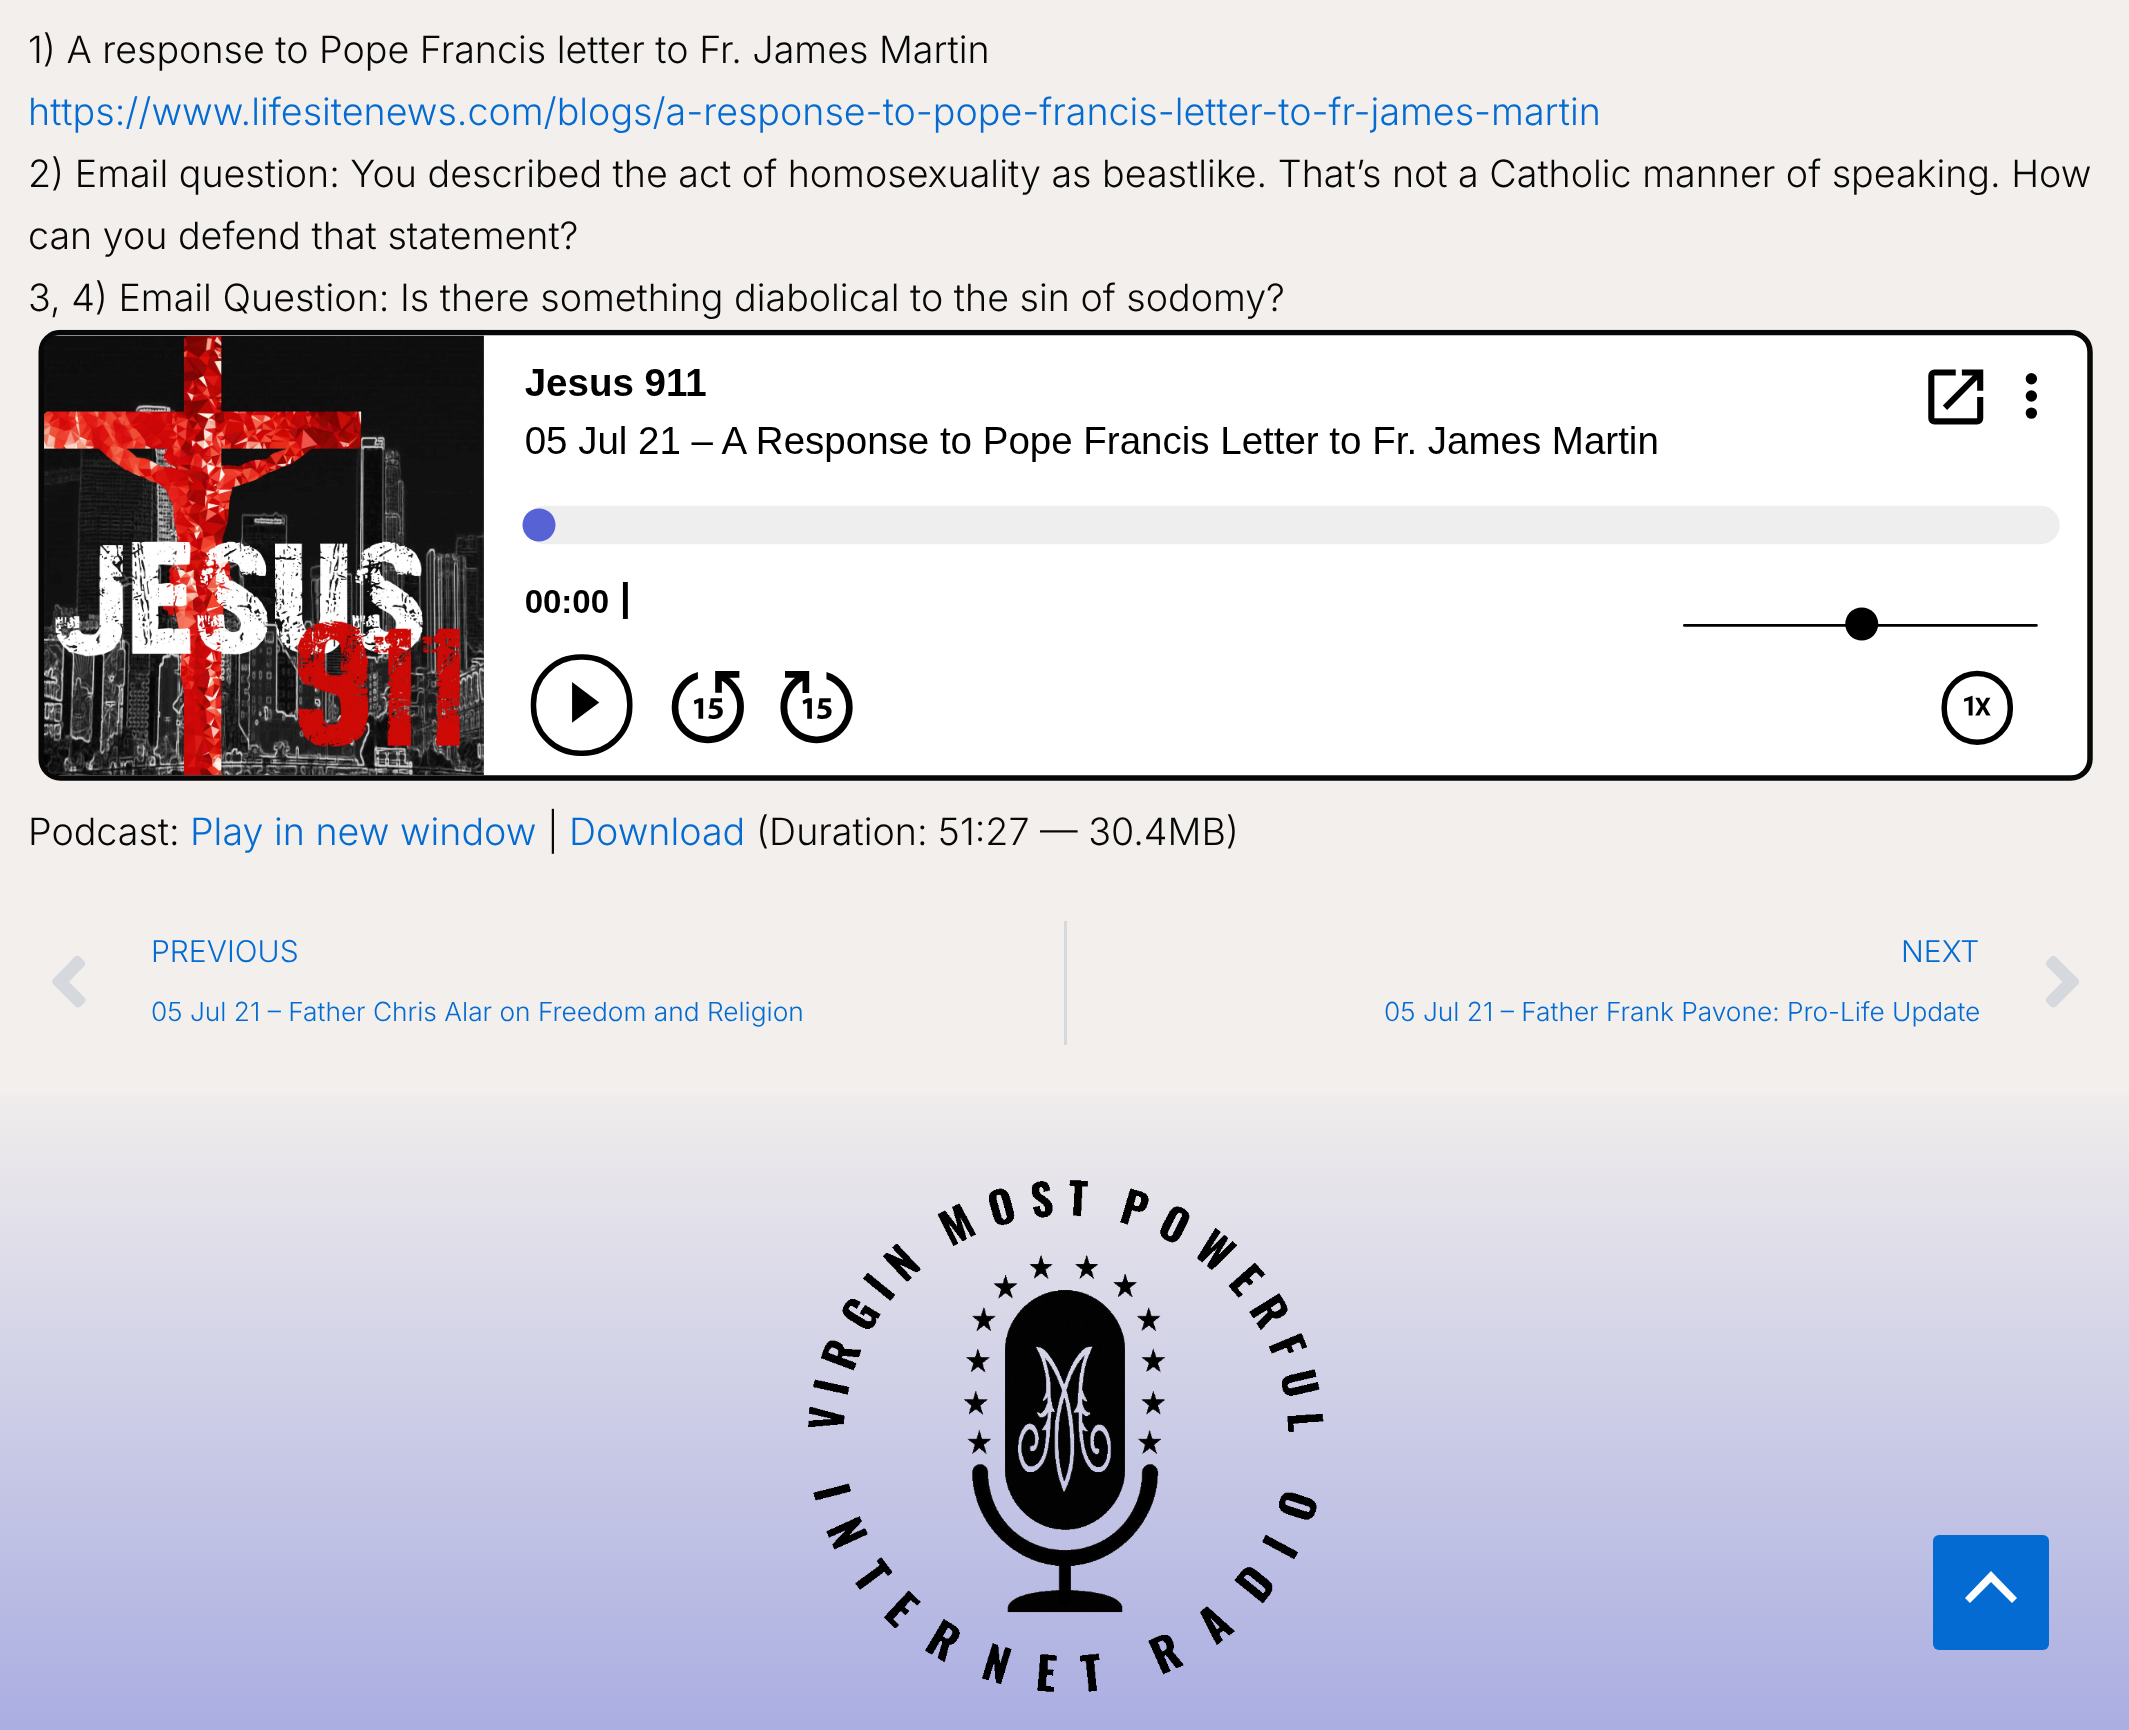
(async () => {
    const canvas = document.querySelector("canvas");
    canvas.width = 2129;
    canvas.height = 1730;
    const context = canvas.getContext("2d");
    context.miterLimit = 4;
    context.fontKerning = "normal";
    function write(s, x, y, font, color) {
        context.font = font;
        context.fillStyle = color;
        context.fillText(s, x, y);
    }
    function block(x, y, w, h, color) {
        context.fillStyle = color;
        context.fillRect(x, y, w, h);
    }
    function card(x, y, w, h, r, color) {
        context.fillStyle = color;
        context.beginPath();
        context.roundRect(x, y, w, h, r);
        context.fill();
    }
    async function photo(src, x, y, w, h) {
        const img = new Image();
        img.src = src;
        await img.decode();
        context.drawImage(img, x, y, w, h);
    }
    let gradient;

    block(0, 0, 2129, 1730, "rgb(242, 239, 236)");
    write("1) A response to Pope Francis letter to Fr. James Martin", 28, 63, "300 37.62px Inter", "rgb(7, 7, 7)");
    write("https://www.lifesitenews.com/blogs/a-response-to-pope-francis-letter-to-fr-james-martin", 28, 125, "300 37.62px Inter", "rgb(4, 107, 210)");
    write("2) Email question: You described the act of homosexuality as beastlike. That’s not a Catholic manner of speaking. How", 28, 187, "300 37.62px Inter", "rgb(7, 7, 7)");
    write("can you defend that statement?", 28, 249, "300 37.62px Inter", "rgb(7, 7, 7)");
    write("3, 4) Email Question: Is there something diabolical to the sin of sodomy?", 28, 311, "300 37.62px Inter", "rgb(7, 7, 7)");
    await photo("media/1.png", 38, 329, 2055, 452);
    write("Podcast:", 28, 845, "300 37.62px Inter", "rgb(7, 7, 7)");
    write("Play in new window", 190, 845, "300 37.62px Inter", "rgb(4, 107, 210)");
    write("|", 547, 845, "300 37.62px Inter", "rgb(7, 7, 7)");
    write("Download", 569, 845, "300 37.62px Inter", "rgb(4, 107, 210)");
    write("(Duration: 51:27 — 30.4MB)", 756, 845, "300 37.62px Inter", "rgb(7, 7, 7)");
    context.fillStyle = "rgb(213, 216, 220)";
    context.beginPath();
    context.moveTo(53, 979);
    context.lineTo(68, 964);
    context.bezierCurveTo(76, 956, 76, 952, 84, 961);
    context.bezierCurveTo(88, 965, 81, 969, 79, 971);
    context.lineTo(69, 982);
    context.lineTo(84, 997);
    context.bezierCurveTo(86, 999, 86, 1001, 84, 1003);
    context.lineTo(81, 1006);
    context.bezierCurveTo(79, 1008, 77, 1008, 75, 1006);
    context.lineTo(53, 984);
    context.bezierCurveTo(52, 983, 52, 981, 53, 979);
    context.closePath();
    context.fill();
    write("PREVIOUS", 151, 962, "300 30px Inter", "rgb(4, 107, 210)");
    write("05 Jul 21 – Father Chris Alar on Freedom and Religion", 151, 1021, "300 26.3px Inter", "rgb(4, 107, 210)");
    block(1064, 921, 3, 124, "rgb(213, 216, 220)");
    write("NEXT", 1901, 962, "300 30px Inter", "rgb(4, 107, 210)");
    write("05 Jul 21 – Father Frank Pavone: Pro-Life Update", 1384, 1021, "300 26.3px Inter", "rgb(4, 107, 210)");
    await photo("media/2.png", 2046, 956, 33, 52);
    gradient = context.createLinearGradient(1066, 1072, 1066, 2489);
    gradient.addColorStop(0, "rgb(242, 239, 236)");
    gradient.addColorStop(1, "rgb(87, 98, 213)");
    context.fillStyle = gradient;
    context.fillRect(0, 1095, 2129, 635);
    await photo("media/3.png", 808, 1180, 516, 512);
    card(1933, 1535, 116, 115, 6, "rgb(4, 107, 210)");
    context.fillStyle = "rgb(255, 255, 255)";
    context.beginPath();
    context.moveTo(2017, 1598);
    context.lineTo(1991, 1571);
    context.lineTo(1965, 1598);
    context.lineTo(1970, 1603);
    context.lineTo(1991, 1582);
    context.lineTo(2012, 1603);
    context.closePath();
    context.fill();
})();
